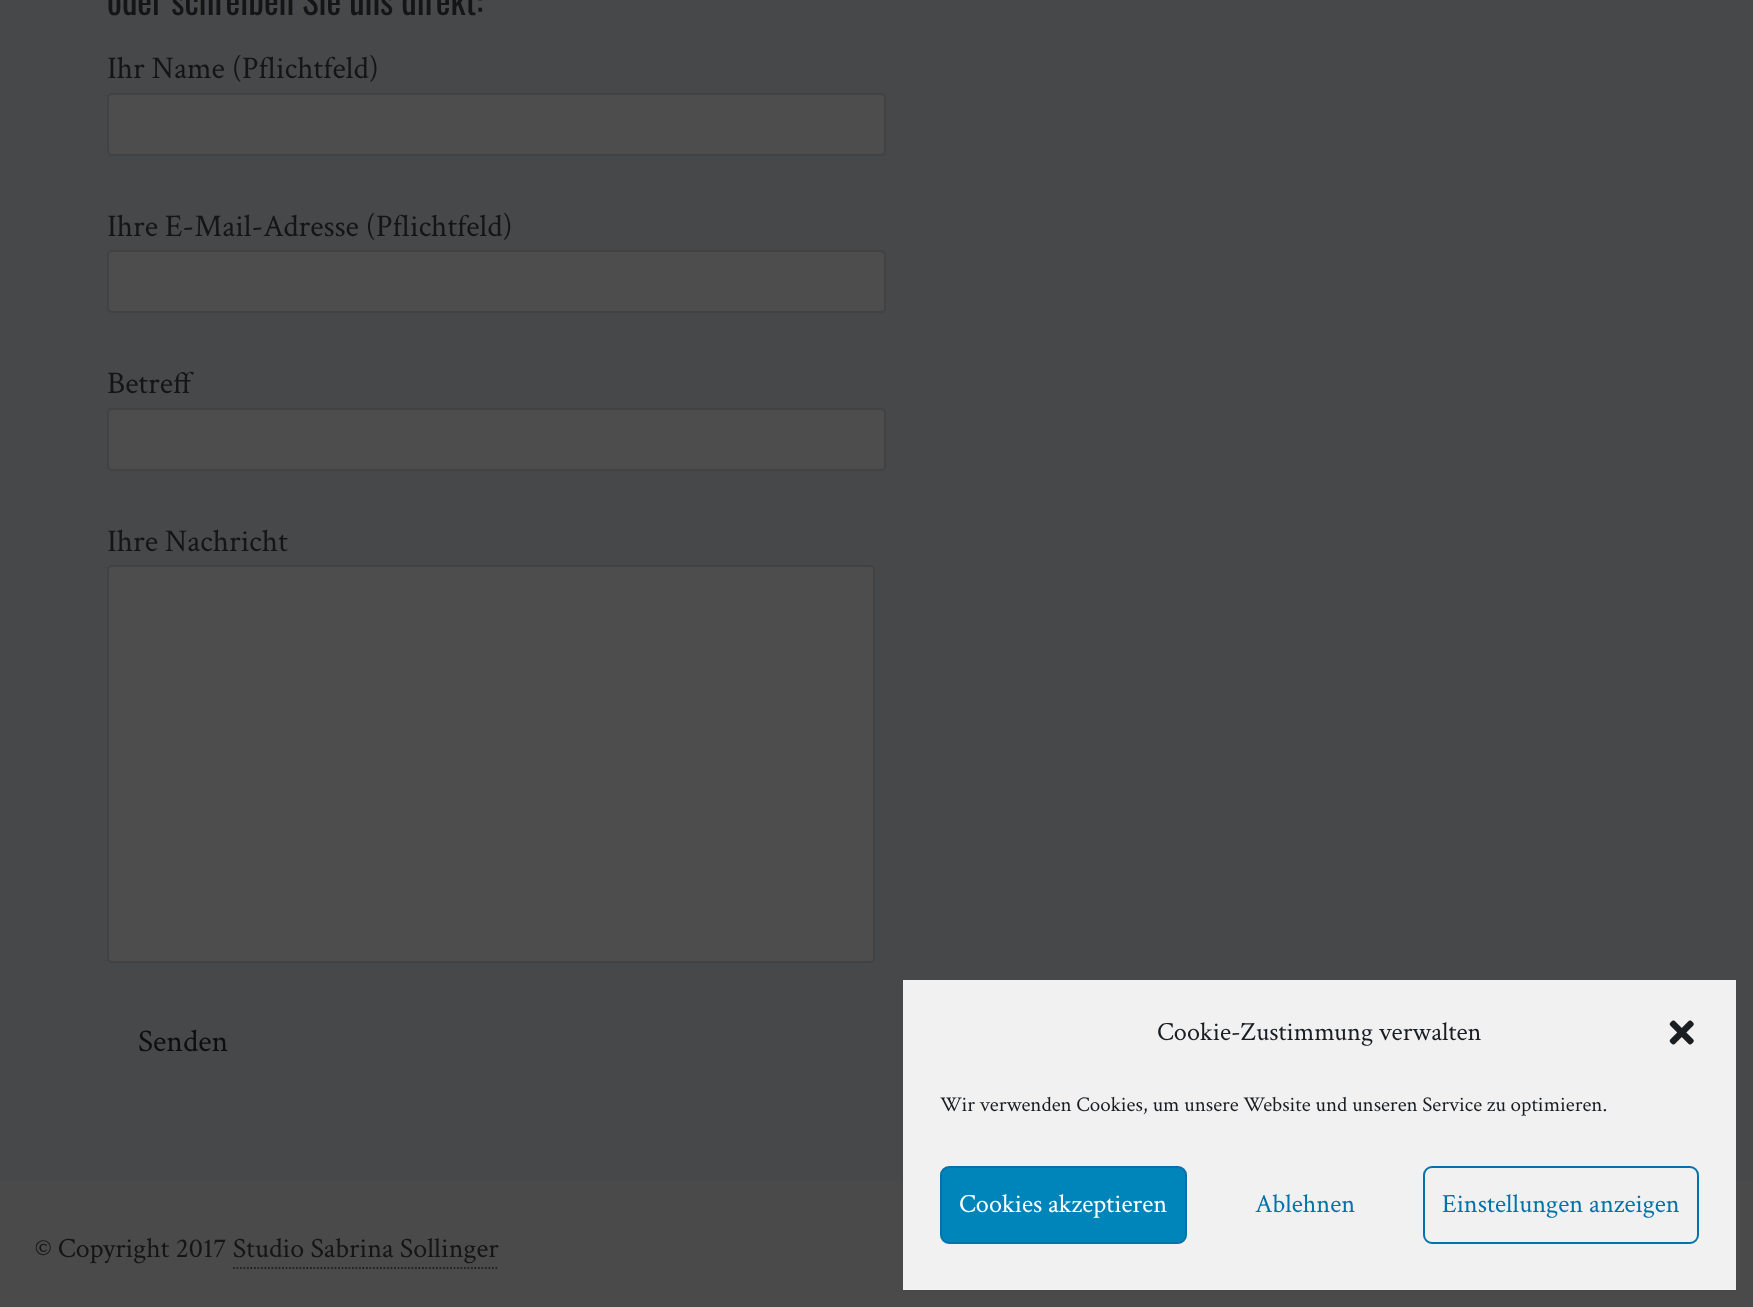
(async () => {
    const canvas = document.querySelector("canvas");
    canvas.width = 1753;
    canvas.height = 1307;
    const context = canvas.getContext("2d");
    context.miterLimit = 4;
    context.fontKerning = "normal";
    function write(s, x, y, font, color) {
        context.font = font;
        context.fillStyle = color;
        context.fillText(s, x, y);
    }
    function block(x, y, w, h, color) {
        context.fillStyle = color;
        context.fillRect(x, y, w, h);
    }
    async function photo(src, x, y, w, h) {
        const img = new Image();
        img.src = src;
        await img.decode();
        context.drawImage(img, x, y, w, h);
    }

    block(0, 0, 1753, 1307, "rgb(70, 72, 73)");
    write("oder schreiben Sie uns direkt:", 107, 15, "35px Oswald", "rgb(21, 21, 21)");
    write("Ihr Name (Pflichtfeld)", 107, 78, "31.5px Crimson Text", "rgb(21, 21, 21)");
    context.fillStyle = "rgb(77, 77, 77)";
    context.beginPath();
    context.roundRect(108, 94, 777, 61, 4);
    context.fill();
    context.strokeStyle = "rgb(66, 66, 66)";
    context.lineWidth = 2;
    context.stroke();
    write("Ihre E-Mail-Adresse (Pflichtfeld)", 107, 236, "31.5px Crimson Text", "rgb(21, 21, 21)");
    context.fillStyle = "rgb(77, 77, 77)";
    context.beginPath();
    context.roundRect(108, 251, 777, 61, 4);
    context.fill();
    context.stroke();
    write("Betreff", 107, 393, "31.5px Crimson Text", "rgb(21, 21, 21)");
    context.fillStyle = "rgb(77, 77, 77)";
    context.beginPath();
    context.roundRect(108, 409, 777, 61, 4);
    context.fill();
    context.stroke();
    write("Ihre Nachricht", 107, 551, "31.5px Crimson Text", "rgb(21, 21, 21)");
    context.fillStyle = "rgb(77, 77, 77)";
    context.beginPath();
    context.roundRect(108, 566, 766, 396, 4);
    context.fill();
    context.stroke();
    write("Senden", 138, 1051, "31.5px Crimson Text", "rgb(14, 14, 14)");
    block(0, 1181, 1753, 126, "rgb(74, 74, 74)");
    write("© Copyright 2017 Studio Sabrina Sollinger", 35, 1257, "28px Crimson Text", "rgb(21, 21, 21)");
    context.beginPath();
    context.moveTo(233, 1268);
    context.lineTo(499, 1268);
    context.strokeStyle = "rgb(36, 36, 36)";
    context.lineWidth = 1.8;
    context.setLineDash([1.75, 1.75]);
    context.stroke();
    block(903, 980, 833, 310, "rgb(241, 241, 241)");
    write("Cookie-Zustimmung verwalten", 1157, 1040, "26.25px Crimson Text", "rgb(25, 30, 35)");
    await photo("media/1.png", 1669, 1020, 25, 25);
    write("Wir verwenden Cookies, um unsere Website und unseren Service zu optimieren.", 940, 1111, "21px Crimson Text", "rgb(25, 30, 35)");
    context.fillStyle = "rgb(0, 133, 186)";
    context.beginPath();
    context.roundRect(941, 1167, 245, 76, 8);
    context.fill();
    context.strokeStyle = "rgb(0, 115, 170)";
    context.lineWidth = 2;
    context.setLineDash([]);
    context.stroke();
    write("Cookies akzeptieren", 959, 1212, "26.25px Crimson Text", "rgb(255, 255, 255)");
    write("Ablehnen", 1255, 1212, "26.25px Crimson Text", "rgb(0, 115, 170)");
    context.beginPath();
    context.roundRect(1424, 1167, 274, 76, 8);
    context.stroke();
    write("Einstellungen anzeigen", 1442, 1212, "26.25px Crimson Text", "rgb(0, 115, 170)");
})();
